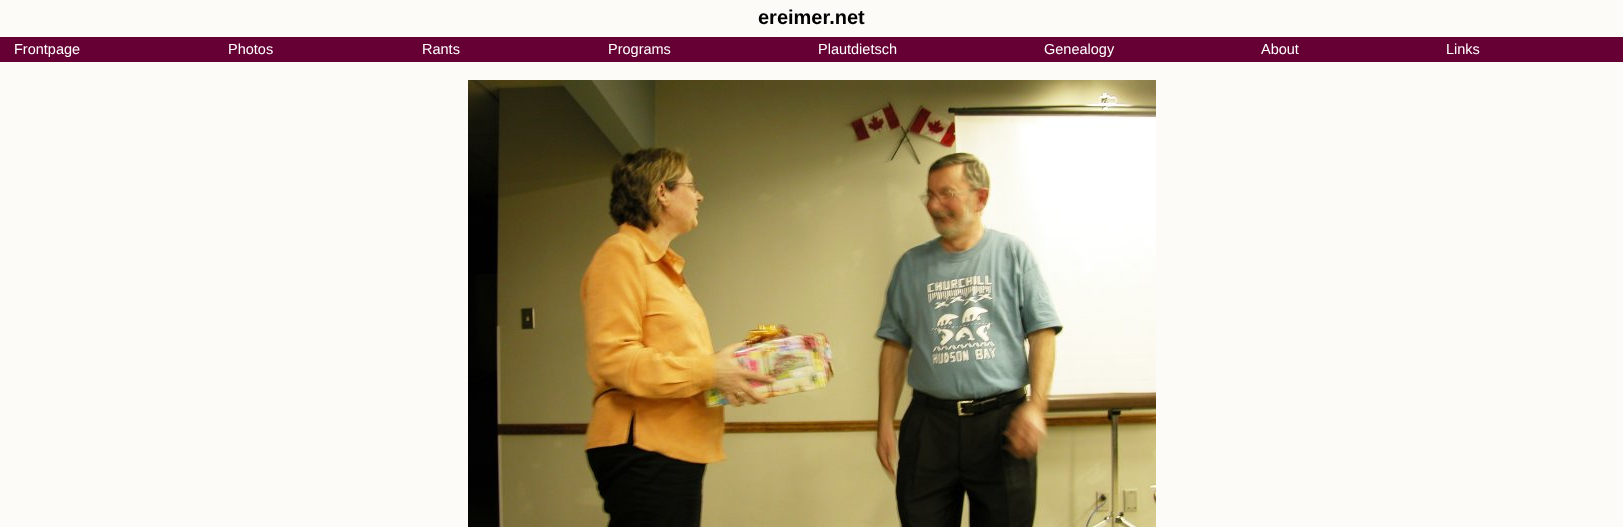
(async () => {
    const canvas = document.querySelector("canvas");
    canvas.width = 1623;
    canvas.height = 527;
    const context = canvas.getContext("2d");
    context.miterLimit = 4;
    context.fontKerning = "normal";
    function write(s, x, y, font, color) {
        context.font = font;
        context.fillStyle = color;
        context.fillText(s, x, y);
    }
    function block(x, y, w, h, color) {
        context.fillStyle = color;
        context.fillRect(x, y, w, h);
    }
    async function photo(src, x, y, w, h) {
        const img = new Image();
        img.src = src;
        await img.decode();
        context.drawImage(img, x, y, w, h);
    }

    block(0, 0, 1623, 527, "rgb(252, 251, 248)");
    write("ereimer.net", 758, 24, "bold 20px Liberation Sans", "rgb(0, 0, 0)");
    block(0, 37, 1623, 25, "rgb(102, 0, 52)");
    write("Frontpage", 14, 54, "14.5px Liberation Sans", "rgb(255, 255, 255)");
    write("Photos", 228, 54, "14.5px Liberation Sans", "rgb(255, 255, 255)");
    write("Rants", 422, 54, "14.5px Liberation Sans", "rgb(255, 255, 255)");
    write("Programs", 608, 54, "14.5px Liberation Sans", "rgb(255, 255, 255)");
    write("Plautdietsch", 818, 54, "14.5px Liberation Sans", "rgb(255, 255, 255)");
    write("Genealogy", 1044, 54, "14.5px Liberation Sans", "rgb(255, 255, 255)");
    write("About", 1261, 54, "14.5px Liberation Sans", "rgb(255, 255, 255)");
    write("Links", 1446, 54, "14.5px Liberation Sans", "rgb(255, 255, 255)");
    await photo("media/1.png", 468, 80, 688, 447);
})();
